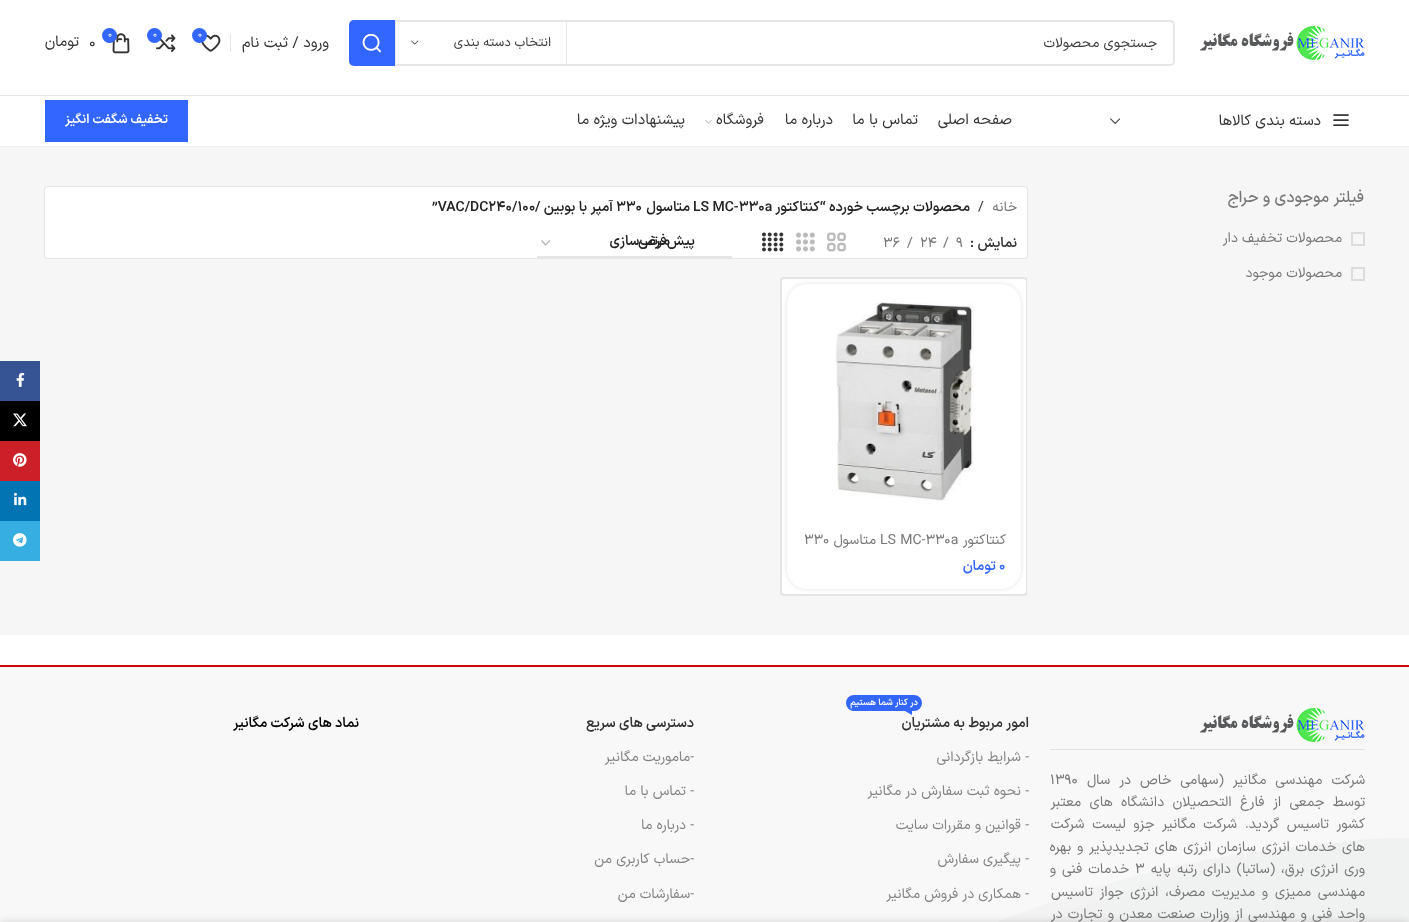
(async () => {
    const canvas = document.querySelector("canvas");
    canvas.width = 1409;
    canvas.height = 922;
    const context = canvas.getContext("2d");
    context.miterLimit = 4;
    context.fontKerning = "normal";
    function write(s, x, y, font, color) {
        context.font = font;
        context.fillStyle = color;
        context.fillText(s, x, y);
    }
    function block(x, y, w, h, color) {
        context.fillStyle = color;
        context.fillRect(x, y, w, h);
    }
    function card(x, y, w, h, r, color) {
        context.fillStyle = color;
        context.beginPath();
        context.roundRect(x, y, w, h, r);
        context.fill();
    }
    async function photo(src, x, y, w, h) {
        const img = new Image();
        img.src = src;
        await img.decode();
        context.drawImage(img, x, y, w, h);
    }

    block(0, 0, 1409, 922, "rgb(255, 255, 255)");
    block(0, 95, 1409, 1, "rgb(230, 230, 230)");
    await photo("media/1.png", 1200, 26, 165, 34);
    context.beginPath();
    context.roundRect(350, 21, 824, 44, 4);
    context.strokeStyle = "rgb(230, 230, 230)";
    context.lineWidth = 2;
    context.stroke();
    context.direction = "rtl";
    write("جستجوی محصولات", 1157, 47, "14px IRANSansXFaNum", "rgb(58, 58, 58)");
    block(566, 22, 1, 42, "rgb(230, 230, 230)");
    block(395, 22, 1, 42, "rgb(230, 230, 230)");
    write("انتخاب دسته بندی", 551, 46, "13px IRANSansXFaNum", "rgb(58, 58, 58)");
    await photo("media/2.png", 411, 40, 8, 5);
    context.fillStyle = "rgb(51, 102, 255)";
    context.beginPath();
    context.roundRect(349, 20, 46, 46, [5, 0, 0, 5]);
    context.fill();
    await photo("media/3.png", 362, 33, 19, 20);
    write("ورود / ثبت نام", 329, 47, "15px IRANSansXFaNum", "rgb(51, 51, 51)");
    block(230, 34, 1, 18, "rgb(228, 228, 228)");
    await photo("media/4.png", 201, 34, 20, 18);
    context.fillStyle = "rgb(51, 102, 255)";
    context.beginPath();
    context.arc(199.5, 35.5, 7.5, 0, Math.PI * 2);
    context.fill();
    context.direction = "ltr";
    write("0", 198, 37, "9px IRANSansXFaNum", "rgb(255, 255, 255)");
    await photo("media/5.png", 156, 34, 20, 18);
    context.fillStyle = "rgb(51, 102, 255)";
    context.beginPath();
    context.arc(154.5, 35.5, 7.5, 0, Math.PI * 2);
    context.fill();
    write("0", 153, 37, "9px IRANSansXFaNum", "rgb(255, 255, 255)");
    await photo("media/6.png", 112, 33, 18, 21);
    context.fillStyle = "rgb(51, 102, 255)";
    context.beginPath();
    context.arc(109.5, 35.5, 7.5, 0, Math.PI * 2);
    context.fill();
    write("0", 108, 37, "9px IRANSansXFaNum", "rgb(255, 255, 255)");
    write("0", 89, 47, "15px IRANSansXFaNum", "rgb(51, 51, 51)");
    context.direction = "rtl";
    write("تومان", 79, 46, "15px IRANSansXFaNum", "rgb(51, 51, 51)");
    block(0, 146, 1409, 1, "rgb(242, 242, 242)");
    await photo("media/7.png", 1333, 114, 16, 12);
    write("دسته بندی کالاها", 1321, 125, "15px IRANSansXFaNum", "rgb(51, 51, 51)");
    await photo("media/8.png", 1110, 118, 11, 6);
    write("صفحه اصلی", 1012, 124, "15px IRANSansXFaNum", "rgb(51, 51, 51)");
    write("تماس با ما", 918, 124, "15px IRANSansXFaNum", "rgb(51, 51, 51)");
    write("درباره ما", 833, 124, "15px IRANSansXFaNum", "rgb(51, 51, 51)");
    write("فروشگاه", 764, 124, "15px IRANSansXFaNum", "rgb(51, 51, 51)");
    await photo("media/9.png", 705, 119, 7, 5);
    write("پیشنهادات ویژه ما", 685, 124, "15px IRANSansXFaNum", "rgb(51, 51, 51)");
    block(45, 100, 143, 42, "rgb(51, 102, 255)");
    write("تخفیف شگفت انگیز", 168, 123, "600 13px IRANSansXFaNum", "rgb(255, 255, 255)");
    block(0, 147, 1409, 488, "rgb(246, 246, 246)");
    write("فیلتر موجودی و حراج", 1364, 202, "500 16px IRANSansXFaNum", "rgb(119, 119, 119)");
    context.strokeStyle = "rgb(220, 220, 220)";
    context.strokeRect(1352, 233, 12, 12);
    write("محصولات تخفیف دار", 1342, 242, "14px IRANSansXFaNum", "rgb(119, 119, 119)");
    context.strokeRect(1352, 268, 12, 12);
    write("محصولات موجود", 1342, 277, "14px IRANSansXFaNum", "rgb(119, 119, 119)");
    context.fillStyle = "rgb(230, 230, 230)";
    context.filter = "blur(0.5px)";
    context.beginPath();
    context.roundRect(44, 186, 984, 73, 4);
    context.fill();
    context.filter = "none";
    card(45, 187, 982, 71, 3, "rgb(255, 255, 255)");
    write("خانه", 1017, 211, "14px IRANSansXFaNum", "rgb(119, 119, 119)");
    context.direction = "ltr";
    write("/", 978, 211, "14px IRANSansXFaNum", "rgb(58, 58, 58)");
    context.direction = "rtl";
    write("محصولات برچسب خورده “کنتاکتور", 970, 211, "600 14px IRANSansXFaNum", "rgb(36, 36, 36)");
    context.direction = "ltr";
    write("LS MC-330a", 693, 211, "600 14px IRANSansXFaNum", "rgb(36, 36, 36)");
    context.direction = "rtl";
    write("متاسول", 690, 211, "600 14px IRANSansXFaNum", "rgb(36, 36, 36)");
    context.direction = "ltr";
    write("330", 616, 211, "600 14px IRANSansXFaNum", "rgb(36, 36, 36)");
    context.direction = "rtl";
    write("آمپر با بوبین /", 613, 211, "600 14px IRANSansXFaNum", "rgb(36, 36, 36)");
    context.direction = "ltr";
    write("”VAC/DC240/100", 432, 211, "600 14px IRANSansXFaNum", "rgb(36, 36, 36)");
    context.direction = "rtl";
    write("نمایش", 1017, 247, "600 14px IRANSansXFaNum", "rgb(51, 51, 51)");
    context.direction = "ltr";
    write(":", 970, 247, "600 14px IRANSansXFaNum", "rgb(51, 51, 51)");
    write("9", 956, 247, "14px IRANSansXFaNum", "rgb(119, 119, 119)");
    write("/", 943, 247, "14px IRANSansXFaNum", "rgb(119, 119, 119)");
    write("24", 920, 247, "14px IRANSansXFaNum", "rgb(119, 119, 119)");
    write("/", 907, 247, "14px IRANSansXFaNum", "rgb(119, 119, 119)");
    write("36", 883, 247, "14px IRANSansXFaNum", "rgb(119, 119, 119)");
    await photo("media/10.png", 827, 232, 19, 20);
    await photo("media/11.png", 796, 232, 19, 20);
    await photo("media/12.png", 762, 232, 22, 20);
    context.beginPath();
    context.moveTo(541.5, 240.5);
    context.lineTo(545.5, 245);
    context.lineTo(550, 240.5);
    context.strokeStyle = "rgb(187, 187, 187)";
    context.lineWidth = 1.4;
    context.stroke();
    block(537, 256, 195, 2, "rgb(230, 230, 230)");
    context.direction = "rtl";
    write("مرتب‌سازی", 670, 245, "600 14px IRANSansXFaNum", "rgb(36, 36, 36)");
    write("پیش‌فرض", 695, 245, "600 14px IRANSansXFaNum", "rgb(36, 36, 36)");
    block(1026, 278, 1, 317, "rgb(220, 220, 220)");
    context.fillStyle = "rgb(230, 230, 230)";
    context.filter = "blur(0.5px)";
    context.beginPath();
    context.roundRect(780, 277, 247, 319, 4);
    context.fill();
    context.filter = "none";
    card(781, 278, 245, 317, 3, "rgb(255, 255, 255)");
    context.fillStyle = "rgba(0, 0, 0, 0.11)";
    context.beginPath();
    context.moveTo(784, 278);
    context.lineTo(1023, 278);
    context.bezierCurveTo(1025, 278, 1026, 279, 1026, 281);
    context.lineTo(1026, 592);
    context.bezierCurveTo(1026, 594, 1025, 595, 1023, 595);
    context.lineTo(784, 595);
    context.bezierCurveTo(782, 595, 781, 594, 781, 592);
    context.lineTo(781, 281);
    context.bezierCurveTo(781, 279, 782, 278, 784, 278);
    context.closePath();
    context.moveTo(784, 279);
    context.lineTo(1023, 279);
    context.bezierCurveTo(1025, 279, 1026, 280, 1026, 281);
    context.lineTo(1026, 592);
    context.bezierCurveTo(1026, 593, 1025, 594, 1023, 594);
    context.lineTo(784, 594);
    context.bezierCurveTo(783, 594, 782, 593, 782, 592);
    context.lineTo(782, 281);
    context.bezierCurveTo(782, 280, 783, 279, 784, 279);
    context.closePath();
    context.fill("evenodd");
    context.fillStyle = "rgba(0, 0, 0, 0.12)";
    context.filter = "blur(2px)";
    context.beginPath();
    context.roundRect(787, 284, 234, 305, 20);
    context.fill();
    context.filter = "none";
    card(787, 284, 234, 305, 20, "rgb(255, 255, 255)");
    await photo("media/13.png", 835, 302, 139, 199);
    write("کنتاکتور", 1006, 544, "14px IRANSansXFaNum", "rgb(119, 119, 119)");
    context.direction = "ltr";
    write("LS MC-330a", 880, 544, "14px IRANSansXFaNum", "rgb(119, 119, 119)");
    context.direction = "rtl";
    write("متاسول", 876, 544, "14px IRANSansXFaNum", "rgb(119, 119, 119)");
    context.direction = "ltr";
    write("330", 804, 544, "14px IRANSansXFaNum", "rgb(119, 119, 119)");
    write("0", 999, 570, "600 14px IRANSansXFaNum", "rgb(51, 102, 255)");
    context.direction = "rtl";
    write("تومان", 996, 570, "600 14px IRANSansXFaNum", "rgb(51, 102, 255)");
    block(0, 665, 1409, 2, "rgb(207, 6, 6)");
    block(0, 667, 1409, 255, "rgb(248, 248, 248)");
    await photo("media/14.png", 999, 838, 410, 84);
    block(1050, 749, 315, 1, "rgb(225, 225, 225)");
    await photo("media/15.png", 1200, 708, 165, 34);
    context.wordSpacing = "4.75px";
    write("شرکت مهندسی مگانیر (سهامی خاص در سال", 1365, 784, "14px IRANSansXFaNum", "rgb(119, 119, 119)");
    context.wordSpacing = "0px";
    context.direction = "ltr";
    write("1390", 1050, 784, "14px IRANSansXFaNum", "rgb(119, 119, 119)");
    context.wordSpacing = "4.25px";
    context.direction = "rtl";
    write("توسط جمعی از فارغ التحصیلان دانشگاه های معتبر", 1365, 806, "14px IRANSansXFaNum", "rgb(119, 119, 119)");
    context.wordSpacing = "3.5px";
    write("کشور تاسیس گردید. شرکت مگانیر جزو لیست شرکت", 1365, 828, "14px IRANSansXFaNum", "rgb(119, 119, 119)");
    context.wordSpacing = "1.5px";
    write("های خدمات انرژی سازمان انرژی های تجدیدپذیر و بهره", 1365, 851, "14px IRANSansXFaNum", "rgb(119, 119, 119)");
    context.wordSpacing = "1.75px";
    write("وری انرژی برق، (ساتبا) دارای رتبه پایه", 1365, 873, "14px IRANSansXFaNum", "rgb(119, 119, 119)");
    context.wordSpacing = "0px";
    context.direction = "ltr";
    write("3", 1135, 873, "14px IRANSansXFaNum", "rgb(119, 119, 119)");
    context.wordSpacing = "1.75px";
    context.direction = "rtl";
    write("خدمات فنی و", 1129, 873, "14px IRANSansXFaNum", "rgb(119, 119, 119)");
    context.wordSpacing = "2.5px";
    write("مهندسی ممیزی و مدیریت مصرف، انرژی جواز تاسیس", 1365, 896, "14px IRANSansXFaNum", "rgb(119, 119, 119)");
    context.wordSpacing = "1px";
    write("واحد فنی و مهندسی از وزارت صنعت معدن و تجارت در", 1365, 918, "14px IRANSansXFaNum", "rgb(119, 119, 119)");
    card(846, 695, 76, 16, 8, "rgb(51, 102, 255)");
    context.wordSpacing = "0px";
    write("در کنار شما هستیم", 918, 705, "600 9px IRANSansXFaNum", "rgb(255, 255, 255)");
    context.fillStyle = "rgb(51, 102, 255)";
    context.beginPath();
    context.moveTo(905, 711);
    context.lineTo(912, 711);
    context.lineTo(912, 715);
    context.closePath();
    context.fill();
    write("امور مربوط به مشتریان", 1029, 727, "600 14px IRANSansXFaNum", "rgb(51, 51, 51)");
    write("- شرایط بازگردانی", 1029, 761, "14px IRANSansXFaNum", "rgb(131, 131, 131)");
    write("- نحوه ثبت سفارش در مگانیر", 1029, 795, "14px IRANSansXFaNum", "rgb(131, 131, 131)");
    write("- قوانین و مقررات سایت", 1029, 829, "14px IRANSansXFaNum", "rgb(131, 131, 131)");
    write("- پیگیری سفارش", 1029, 863, "14px IRANSansXFaNum", "rgb(131, 131, 131)");
    write("- همکاری در فروش مگانیر", 1029, 898, "14px IRANSansXFaNum", "rgb(131, 131, 131)");
    write("دسترسی های سریع", 694, 727, "600 14px IRANSansXFaNum", "rgb(51, 51, 51)");
    write("-ماموریت مگانیر", 694, 761, "14px IRANSansXFaNum", "rgb(131, 131, 131)");
    write("- تماس با ما", 694, 795, "14px IRANSansXFaNum", "rgb(131, 131, 131)");
    write("- درباره ما", 694, 829, "14px IRANSansXFaNum", "rgb(131, 131, 131)");
    write("-حساب کاربری من", 694, 863, "14px IRANSansXFaNum", "rgb(131, 131, 131)");
    write("-سفارشات من", 694, 898, "14px IRANSansXFaNum", "rgb(131, 131, 131)");
    write("نماد های شرکت مگانیر", 359, 727, "600 14px IRANSansXFaNum", "rgb(0, 0, 0)");
    block(0, 361, 40, 40, "rgb(54, 84, 147)");
    await photo("media/16.png", 16, 372, 9, 15);
    block(0, 401, 40, 40, "rgb(0, 0, 0)");
    await photo("media/17.png", 13, 413, 14, 14);
    block(0, 441, 40, 40, "rgb(203, 32, 39)");
    await photo("media/18.png", 13, 453, 14, 14);
    block(0, 481, 40, 40, "rgb(2, 116, 179)");
    await photo("media/19.png", 14, 492, 13, 14);
    block(0, 521, 40, 40, "rgb(55, 174, 226)");
    await photo("media/20.png", 13, 533, 14, 14);
    context.fillStyle = "rgba(0, 0, 0, 0.14)";
    context.filter = "blur(4.5px)";
    context.beginPath();
    context.rect(0, 922, 1409, 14);
    context.fill();
    context.filter = "none";
})();
